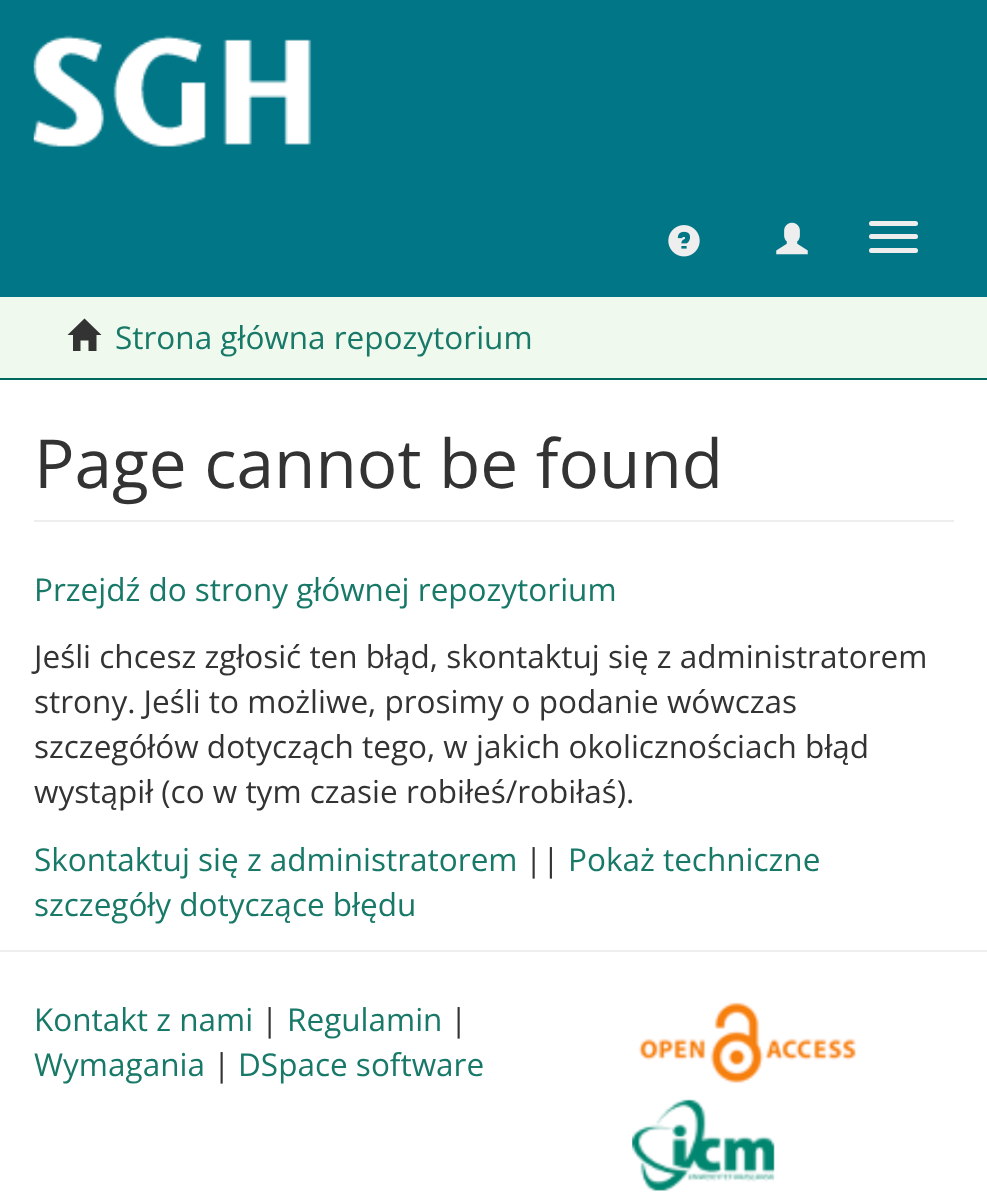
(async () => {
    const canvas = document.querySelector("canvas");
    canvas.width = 987;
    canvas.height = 1198;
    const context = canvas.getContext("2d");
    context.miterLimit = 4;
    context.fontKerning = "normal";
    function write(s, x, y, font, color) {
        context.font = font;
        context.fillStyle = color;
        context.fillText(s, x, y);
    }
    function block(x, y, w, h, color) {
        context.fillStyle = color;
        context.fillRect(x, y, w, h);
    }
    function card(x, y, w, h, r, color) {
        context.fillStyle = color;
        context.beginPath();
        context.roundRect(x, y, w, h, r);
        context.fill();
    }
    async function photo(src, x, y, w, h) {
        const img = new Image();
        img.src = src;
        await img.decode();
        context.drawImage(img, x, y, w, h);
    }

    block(0, 0, 987, 1198, "rgb(239, 249, 237)");
    block(0, 0, 987, 297, "rgb(0, 118, 135)");
    await photo("media/1.png", 33, 35, 279, 112);
    await photo("media/2.png", 668, 225, 32, 32);
    await photo("media/3.png", 776, 222, 32, 33);
    card(869, 221, 49, 5, 2.5, "rgb(238, 238, 238)");
    card(869, 234, 49, 5, 2.5, "rgb(238, 238, 238)");
    card(869, 248, 49, 5, 2.5, "rgb(238, 238, 238)");
    block(0, 378, 987, 2, "rgb(0, 104, 92)");
    context.fillStyle = "rgb(51, 51, 51)";
    context.beginPath();
    context.moveTo(67.5, 335);
    context.lineTo(84.5, 318.5);
    context.lineTo(101.5, 335);
    context.lineTo(96.5, 335);
    context.lineTo(96.5, 351);
    context.lineTo(88.5, 351);
    context.lineTo(88.5, 340.5);
    context.lineTo(80.5, 340.5);
    context.lineTo(80.5, 351);
    context.lineTo(73, 351);
    context.lineTo(73, 335);
    context.closePath();
    context.fill();
    write("Strona główna repozytorium", 115, 349, "31.5px Open Sans", "rgb(24, 121, 104)");
    block(0, 380, 987, 818, "rgb(255, 255, 255)");
    block(34, 520, 920, 2, "rgb(238, 238, 238)");
    write("Page cannot be found", 34, 488, "67.5px Open Sans", "rgb(51, 51, 51)");
    write("Przejdź do strony głównej repozytorium", 34, 601, "31.5px Open Sans", "rgb(24, 121, 104)");
    write("Jeśli chcesz zgłosić ten błąd, skontaktuj się z administratorem", 34, 668, "31.5px Open Sans", "rgb(51, 51, 51)");
    write("strony. Jeśli to możliwe, prosimy o podanie wówczas", 34, 713, "31.5px Open Sans", "rgb(51, 51, 51)");
    write("szczegółów dotycząch tego, w jakich okolicznościach błąd", 34, 758, "31.5px Open Sans", "rgb(51, 51, 51)");
    write("wystąpił (co w tym czasie robiłeś/robiłaś).", 34, 803, "31.5px Open Sans", "rgb(51, 51, 51)");
    write("Skontaktuj się z administratorem", 34, 871, "31.5px Open Sans", "rgb(24, 121, 104)");
    write("||", 525, 871, "31.5px Open Sans", "rgb(51, 51, 51)");
    write("Pokaż techniczne", 568, 871, "31.5px Open Sans", "rgb(24, 121, 104)");
    write("szczegóły dotyczące błędu", 34, 916, "31.5px Open Sans", "rgb(24, 121, 104)");
    block(0, 950, 987, 2, "rgb(238, 238, 238)");
    write("Kontakt z nami", 34, 1031, "31.5px Open Sans", "rgb(24, 121, 104)");
    write("|", 261, 1031, "31.5px Open Sans", "rgb(51, 51, 51)");
    write("Regulamin", 287, 1031, "31.5px Open Sans", "rgb(24, 121, 104)");
    write("|", 450, 1031, "31.5px Open Sans", "rgb(51, 51, 51)");
    write("Wymagania", 34, 1076, "31.5px Open Sans", "rgb(24, 121, 104)");
    write("|", 213, 1076, "31.5px Open Sans", "rgb(51, 51, 51)");
    write("DSpace software", 238, 1076, "31.5px Open Sans", "rgb(24, 121, 104)");
    await photo("media/4.png", 638, 1002, 219, 82);
    await photo("media/5.png", 632, 1099, 143, 92);
})();
